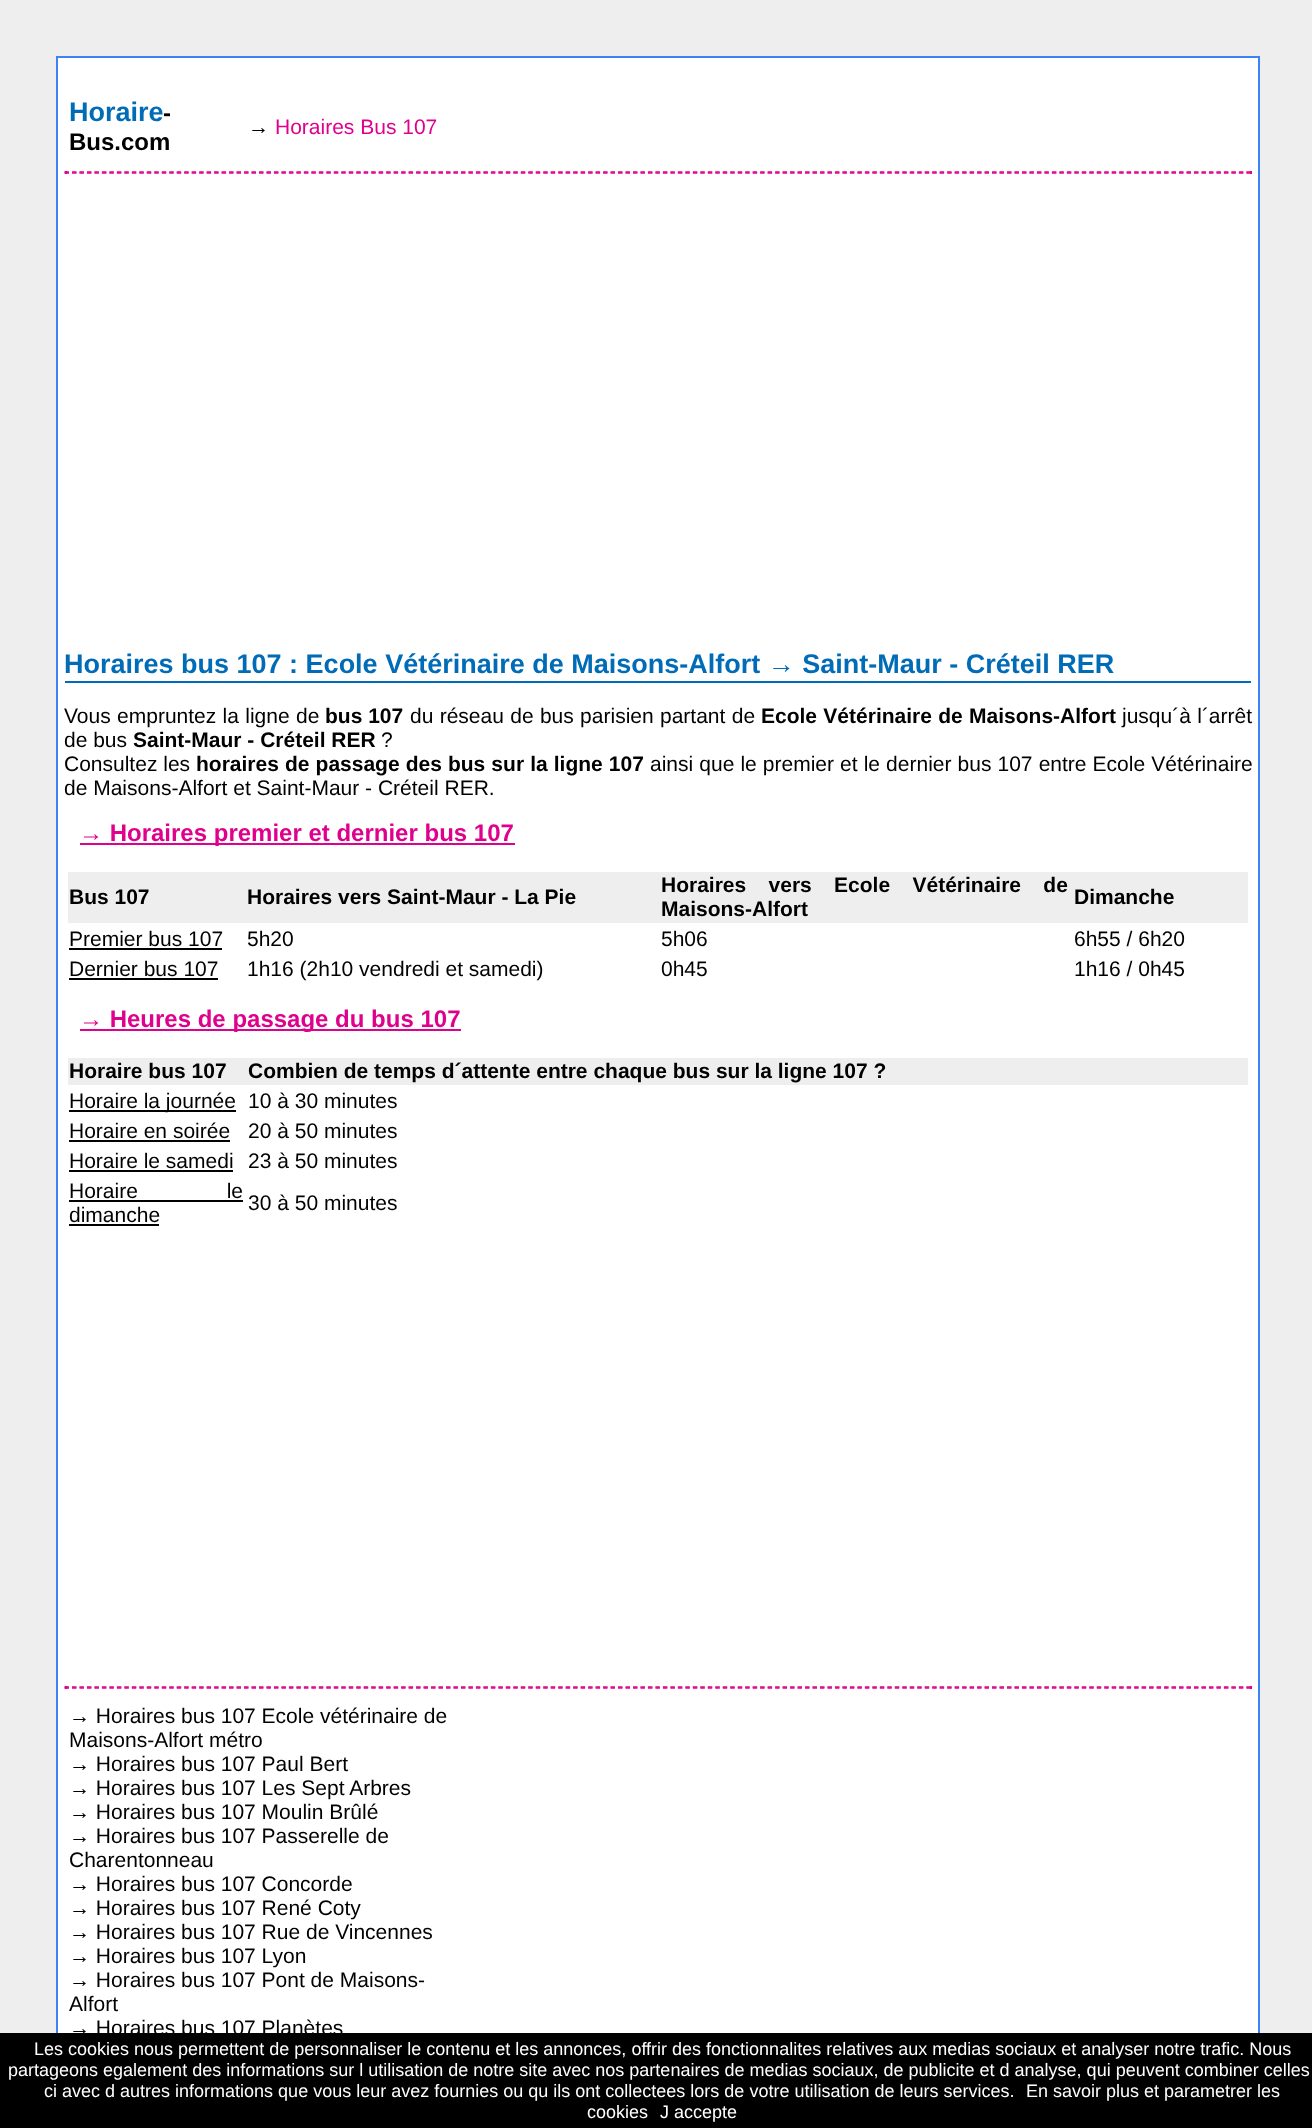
(async () => {
    const canvas = document.querySelector("canvas");
    canvas.width = 1312;
    canvas.height = 2128;
    const context = canvas.getContext("2d");
    context.miterLimit = 4;
    context.fontKerning = "normal";
    function write(s, x, y, font, color) {
        context.font = font;
        context.fillStyle = color;
        context.fillText(s, x, y);
    }
    function block(x, y, w, h, color) {
        context.fillStyle = color;
        context.fillRect(x, y, w, h);
    }

    block(0, 0, 1312, 2128, "rgb(238, 238, 238)");
    block(58, 58, 1200, 1975, "rgb(255, 255, 255)");
    context.strokeStyle = "rgb(61, 130, 249)";
    context.lineWidth = 2;
    context.strokeRect(57, 57, 1202, 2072);
    write("Horaire", 69, 121, "bold 27px Liberation Sans", "rgb(0, 108, 184)");
    write("-", 163, 121, "bold 24px Liberation Sans", "rgb(0, 0, 0)");
    write("Bus.com", 69, 150, "bold 24px Liberation Sans", "rgb(0, 0, 0)");
    write("→", 248, 134, "21px Liberation Sans", "rgb(0, 0, 0)");
    write("Horaires Bus 107", 275, 134, "21px Liberation Sans", "rgb(223, 0, 141)");
    context.beginPath();
    context.moveTo(64.5, 172);
    context.lineTo(1251, 172);
    context.strokeStyle = "rgb(223, 0, 141)";
    context.lineWidth = 1.5;
    context.setLineDash([4.5, 2.98]);
    context.stroke();
    block(1250, 171, 2, 3, "rgb(223, 0, 141)");
    context.beginPath();
    context.moveTo(64.5, 173);
    context.lineTo(1251, 173);
    context.stroke();
    block(65, 171, 2, 3, "rgb(223, 0, 141)");
    block(65, 681, 1186, 2, "rgb(0, 108, 184)");
    write("Horaires bus 107 : Ecole Vétérinaire de Maisons-Alfort → Saint-Maur - Créteil RER", 64, 673, "bold 27px Liberation Sans", "rgb(0, 108, 184)");
    context.wordSpacing = "0.5px";
    write("Vous empruntez la ligne de", 64, 723, "21px Liberation Sans", "rgb(0, 0, 0)");
    context.wordSpacing = "0px";
    write("bus 107", 325, 723, "bold 21px Liberation Sans", "rgb(0, 0, 0)");
    context.wordSpacing = "0.5px";
    write("du réseau de bus parisien partant de", 410, 723, "21px Liberation Sans", "rgb(0, 0, 0)");
    write("Ecole Vétérinaire de Maisons-Alfort", 761, 723, "bold 21px Liberation Sans", "rgb(0, 0, 0)");
    write("jusqu´à l´arrêt", 1122, 723, "21px Liberation Sans", "rgb(0, 0, 0)");
    context.wordSpacing = "0px";
    write("de bus", 64, 747, "21px Liberation Sans", "rgb(0, 0, 0)");
    write("Saint-Maur - Créteil RER", 133, 747, "bold 21px Liberation Sans", "rgb(0, 0, 0)");
    write("?", 381, 747, "21px Liberation Sans", "rgb(0, 0, 0)");
    write("Consultez les", 64, 771, "21px Liberation Sans", "rgb(0, 0, 0)");
    context.wordSpacing = "0.25px";
    write("horaires de passage des bus sur la ligne 107", 196, 771, "bold 21px Liberation Sans", "rgb(0, 0, 0)");
    write("ainsi que le premier et le dernier bus 107 entre Ecole Vétérinaire", 650, 771, "21px Liberation Sans", "rgb(0, 0, 0)");
    context.wordSpacing = "0px";
    write("de Maisons-Alfort et Saint-Maur - Créteil RER.", 64, 795, "21px Liberation Sans", "rgb(0, 0, 0)");
    block(80, 843, 435, 2, "rgb(223, 0, 141)");
    write("→ Horaires premier et dernier bus 107", 79, 841, "bold 24px Liberation Sans", "rgb(223, 0, 141)");
    block(68, 872, 1180, 51, "rgb(238, 238, 238)");
    write("Bus 107", 69, 904, "bold 21px Liberation Sans", "rgb(0, 0, 0)");
    write("Horaires vers Saint-Maur - La Pie", 247, 904, "bold 21px Liberation Sans", "rgb(0, 0, 0)");
    context.wordSpacing = "16.5px";
    write("Horaires vers Ecole Vétérinaire de", 661, 892, "bold 21px Liberation Sans", "rgb(0, 0, 0)");
    context.wordSpacing = "0px";
    write("Maisons-Alfort", 661, 916, "bold 21px Liberation Sans", "rgb(0, 0, 0)");
    write("Dimanche", 1074, 904, "bold 21px Liberation Sans", "rgb(0, 0, 0)");
    write("Premier bus 107", 69, 946, "21px Liberation Sans", "rgb(0, 0, 0)");
    block(69, 948, 153, 2, "rgb(0, 0, 0)");
    write("5h20", 247, 946, "21px Liberation Sans", "rgb(0, 0, 0)");
    write("5h06", 661, 946, "21px Liberation Sans", "rgb(0, 0, 0)");
    write("6h55 / 6h20", 1074, 946, "21px Liberation Sans", "rgb(0, 0, 0)");
    write("Dernier bus 107", 69, 976, "21px Liberation Sans", "rgb(0, 0, 0)");
    block(69, 978, 149, 2, "rgb(0, 0, 0)");
    write("1h16 (2h10 vendredi et samedi)", 247, 976, "21px Liberation Sans", "rgb(0, 0, 0)");
    write("0h45", 661, 976, "21px Liberation Sans", "rgb(0, 0, 0)");
    write("1h16 / 0h45", 1074, 976, "21px Liberation Sans", "rgb(0, 0, 0)");
    block(80, 1029, 381, 2, "rgb(223, 0, 141)");
    write("→ Heures de passage du bus 107", 79, 1027, "bold 24px Liberation Sans", "rgb(223, 0, 141)");
    block(68, 1058, 1180, 27, "rgb(238, 238, 238)");
    write("Horaire bus 107", 69, 1078, "bold 21px Liberation Sans", "rgb(0, 0, 0)");
    write("Combien de temps d´attente entre chaque bus sur la ligne 107 ?", 248, 1078, "bold 21px Liberation Sans", "rgb(0, 0, 0)");
    block(69, 1110, 167, 2, "rgb(0, 0, 0)");
    write("Horaire la journée", 69, 1108, "21px Liberation Sans", "rgb(0, 0, 0)");
    write("10 à 30 minutes", 248, 1108, "21px Liberation Sans", "rgb(0, 0, 0)");
    write("Horaire en soirée", 69, 1138, "21px Liberation Sans", "rgb(0, 0, 0)");
    block(69, 1140, 161, 2, "rgb(0, 0, 0)");
    write("20 à 50 minutes", 248, 1138, "21px Liberation Sans", "rgb(0, 0, 0)");
    write("Horaire le samedi", 69, 1168, "21px Liberation Sans", "rgb(0, 0, 0)");
    block(69, 1170, 164, 2, "rgb(0, 0, 0)");
    write("23 à 50 minutes", 248, 1168, "21px Liberation Sans", "rgb(0, 0, 0)");
    context.wordSpacing = "83px";
    write("Horaire le", 69, 1198, "21px Liberation Sans", "rgb(0, 0, 0)");
    block(69, 1200, 174, 2, "rgb(0, 0, 0)");
    context.wordSpacing = "0px";
    write("dimanche", 69, 1222, "21px Liberation Sans", "rgb(0, 0, 0)");
    block(69, 1224, 90, 2, "rgb(0, 0, 0)");
    write("30 à 50 minutes", 248, 1210, "21px Liberation Sans", "rgb(0, 0, 0)");
    context.beginPath();
    context.moveTo(64.5, 1687);
    context.lineTo(1251, 1687);
    context.stroke();
    block(1250, 1686, 2, 3, "rgb(223, 0, 141)");
    context.beginPath();
    context.moveTo(64.5, 1688);
    context.lineTo(1251, 1688);
    context.stroke();
    block(65, 1686, 2, 3, "rgb(223, 0, 141)");
    write("→ Horaires bus 107 Ecole vétérinaire de", 69, 1723, "21px Liberation Sans", "rgb(0, 0, 0)");
    write("Maisons-Alfort métro", 69, 1747, "21px Liberation Sans", "rgb(0, 0, 0)");
    write("→ Horaires bus 107 Paul Bert", 69, 1771, "21px Liberation Sans", "rgb(0, 0, 0)");
    write("→ Horaires bus 107 Les Sept Arbres", 69, 1795, "21px Liberation Sans", "rgb(0, 0, 0)");
    write("→ Horaires bus 107 Moulin Brûlé", 69, 1819, "21px Liberation Sans", "rgb(0, 0, 0)");
    write("→ Horaires bus 107 Passerelle de", 69, 1843, "21px Liberation Sans", "rgb(0, 0, 0)");
    write("Charentonneau", 69, 1867, "21px Liberation Sans", "rgb(0, 0, 0)");
    write("→ Horaires bus 107 Concorde", 69, 1891, "21px Liberation Sans", "rgb(0, 0, 0)");
    write("→ Horaires bus 107 René Coty", 69, 1915, "21px Liberation Sans", "rgb(0, 0, 0)");
    write("→ Horaires bus 107 Rue de Vincennes", 69, 1939, "21px Liberation Sans", "rgb(0, 0, 0)");
    write("→ Horaires bus 107 Lyon", 69, 1963, "21px Liberation Sans", "rgb(0, 0, 0)");
    write("→ Horaires bus 107 Pont de Maisons-", 69, 1987, "21px Liberation Sans", "rgb(0, 0, 0)");
    write("Alfort", 69, 2011, "21px Liberation Sans", "rgb(0, 0, 0)");
    write("→ Horaires bus 107 Planètes", 69, 2035, "21px Liberation Sans", "rgb(0, 0, 0)");
    block(0, 2033, 1312, 95, "rgb(0, 0, 0)");
    write("Les cookies nous permettent de personnaliser le contenu et les annonces, offrir des fonctionnalites relatives aux medias sociaux et analyser notre trafic. Nous", 34, 2055, "18px Liberation Sans", "rgb(255, 255, 255)");
    write("partageons egalement des informations sur l utilisation de notre site avec nos partenaires de medias sociaux, de publicite et d analyse, qui peuvent combiner celles", 8, 2076, "18px Liberation Sans", "rgb(255, 255, 255)");
    write("ci avec d autres informations que vous leur avez fournies ou qu ils ont collectees lors de votre utilisation de leurs services.", 44, 2097, "18px Liberation Sans", "rgb(255, 255, 255)");
    write("En savoir plus et parametrer les", 1026, 2097, "18px Liberation Sans", "rgb(255, 255, 255)");
    write("cookies", 587, 2118, "18px Liberation Sans", "rgb(255, 255, 255)");
    write("J accepte", 660, 2118, "18px Liberation Sans", "rgb(255, 255, 255)");
})();
